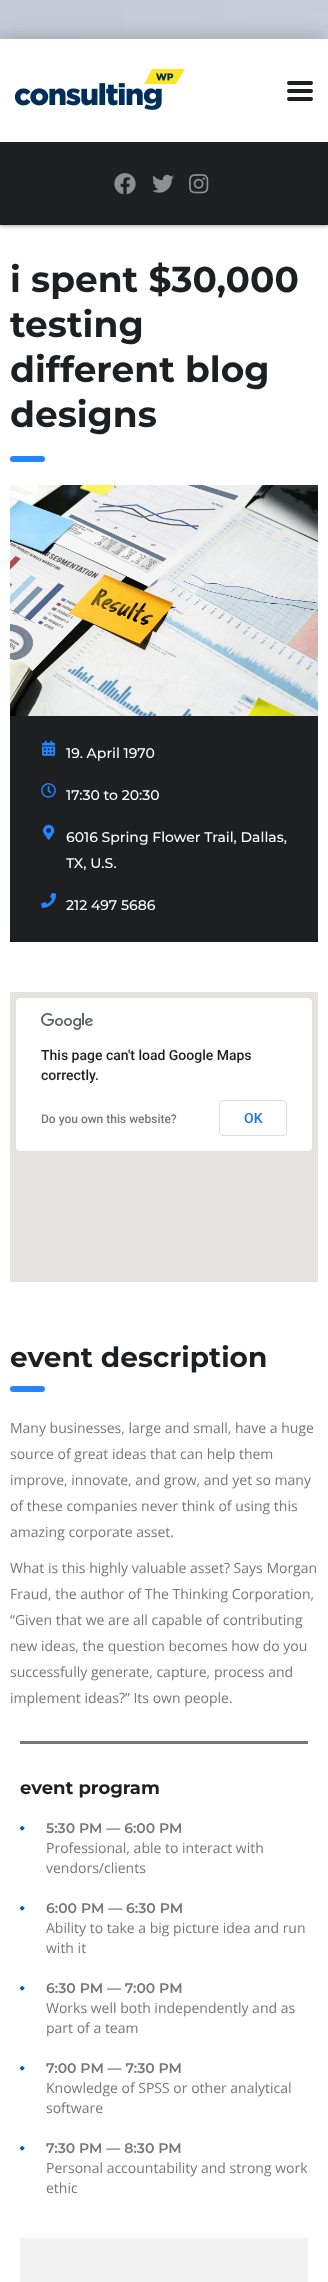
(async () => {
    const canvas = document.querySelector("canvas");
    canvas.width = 328;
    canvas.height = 2282;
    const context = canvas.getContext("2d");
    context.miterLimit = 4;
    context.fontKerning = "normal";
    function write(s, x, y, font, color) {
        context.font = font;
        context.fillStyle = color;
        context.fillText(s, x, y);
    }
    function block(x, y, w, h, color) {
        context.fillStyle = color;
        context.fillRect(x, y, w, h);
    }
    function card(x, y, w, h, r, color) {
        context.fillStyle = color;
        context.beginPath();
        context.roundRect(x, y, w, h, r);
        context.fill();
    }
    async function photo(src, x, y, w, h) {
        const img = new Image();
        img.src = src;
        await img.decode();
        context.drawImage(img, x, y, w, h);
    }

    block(0, 0, 328, 2282, "rgb(255, 255, 255)");
    await photo("media/1.png", 0, 0, 328, 39);
    context.fillStyle = "rgba(0, 0, 0, 0.25)";
    context.filter = "blur(10px)";
    context.beginPath();
    context.rect(0, 39, 328, 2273);
    context.fill();
    context.filter = "none";
    block(0, 225, 328, 2057, "rgb(255, 255, 255)");
    context.save();
    context.beginPath();
    context.rect(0, 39, 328, 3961);
    context.clip();
    context.fillStyle = "rgba(0, 0, 0, 0.52)";
    context.filter = "blur(2.5px)";
    context.beginPath();
    context.rect(0, 39, 328, 186);
    context.fill();
    context.filter = "none";
    context.restore();
    block(0, 142, 328, 83, "rgb(30, 31, 33)");
    block(0, 39, 328, 103, "rgb(255, 255, 255)");
    await photo("media/2.png", 15, 69, 170, 41);
    card(287, 89, 26, 4, 2, "rgb(30, 31, 33)");
    card(287, 81, 26, 4, 2, "rgb(30, 31, 33)");
    card(287, 97, 26, 4, 2, "rgb(30, 31, 33)");
    await photo("media/3.png", 114, 173, 22, 22);
    await photo("media/4.png", 152, 174, 22, 19);
    await photo("media/5.png", 189, 174, 20, 20);
    write("i spent $30,000", 10, 292, "bold 36px Montserrat", "rgb(30, 31, 33)");
    write("testing", 10, 337, "bold 36px Montserrat", "rgb(30, 31, 33)");
    write("different blog", 10, 382, "bold 36px Montserrat", "rgb(30, 31, 33)");
    write("designs", 10, 427, "bold 36px Montserrat", "rgb(30, 31, 33)");
    card(10, 456, 35, 6, 3, "rgb(35, 134, 255)");
    await photo("media/6.png", 10, 485, 308, 231);
    block(10, 716, 308, 226, "rgb(30, 31, 33)");
    await photo("media/7.png", 42, 740, 14, 16);
    write("19. April 1970", 66, 758, "500 14px Montserrat", "rgb(255, 255, 255)");
    await photo("media/8.png", 41, 783, 15, 15);
    write("17:30 to 20:30", 66, 800, "500 14px Montserrat", "rgb(255, 255, 255)");
    await photo("media/9.png", 43, 824, 12, 16);
    write("6016 Spring Flower Trail, Dallas,", 66, 842, "500 14px Montserrat", "rgb(255, 255, 255)");
    write("TX, U.S.", 66, 868, "500 14px Montserrat", "rgb(255, 255, 255)");
    await photo("media/10.png", 41, 892, 15, 16);
    write("212 497 5686", 66, 910, "500 14px Montserrat", "rgb(255, 255, 255)");
    block(10, 992, 308, 290, "rgb(229, 227, 223)");
    card(15, 997, 298, 155, 5, "rgb(255, 255, 255)");
    context.beginPath();
    context.roundRect(15.5, 997.5, 297, 154, 4.5);
    context.strokeStyle = "rgba(0, 0, 0, 0.12)";
    context.stroke();
    await photo("media/11.png", 41, 1013, 52, 17);
    write("This page can't load Google Maps", 41, 1060, "500 14px Roboto", "rgb(30, 31, 33)");
    write("correctly.", 41, 1080, "500 14px Roboto", "rgb(30, 31, 33)");
    write("Do you own this website?", 41, 1123, "500 12px Roboto", "rgb(119, 119, 119)");
    context.beginPath();
    context.roundRect(219.5, 1100.5, 67, 35, 3.5);
    context.strokeStyle = "rgb(218, 220, 224)";
    context.stroke();
    write("OK", 244, 1123, "500 14px Roboto", "rgb(26, 115, 232)");
    write("event description", 10, 1367, "bold 28px Montserrat", "rgb(30, 31, 33)");
    card(10, 1386, 35, 6, 3, "rgb(35, 134, 255)");
    write("Many businesses, large and small, have a huge", 10, 1433, "14px Open Sans", "rgb(119, 119, 119)");
    write("source of great ideas that can help them", 10, 1459, "14px Open Sans", "rgb(119, 119, 119)");
    write("improve, innovate, and grow, and yet so many", 10, 1485, "14px Open Sans", "rgb(119, 119, 119)");
    write("of these companies never think of using this", 10, 1511, "14px Open Sans", "rgb(119, 119, 119)");
    write("amazing corporate asset.", 10, 1537, "14px Open Sans", "rgb(119, 119, 119)");
    write("What is this highly valuable asset? Says Morgan", 10, 1573, "14px Open Sans", "rgb(119, 119, 119)");
    write("Fraud, the author of The Thinking Corporation,", 10, 1599, "14px Open Sans", "rgb(119, 119, 119)");
    write("“Given that we are all capable of contributing", 10, 1625, "14px Open Sans", "rgb(119, 119, 119)");
    write("new ideas, the question becomes how do you", 10, 1651, "14px Open Sans", "rgb(119, 119, 119)");
    write("successfully generate, capture, process and", 10, 1677, "14px Open Sans", "rgb(119, 119, 119)");
    write("implement ideas?” Its own people.", 10, 1703, "14px Open Sans", "rgb(119, 119, 119)");
    block(20, 1741, 288, 3, "rgb(119, 119, 119)");
    write("event program", 20, 1794, "bold 18px Montserrat", "rgb(30, 31, 33)");
    await photo("media/12.png", 19, 1825, 6, 6);
    write("5:30 PM — 6:00 PM", 46, 1833, "600 14px Montserrat", "rgb(119, 119, 119)");
    write("Professional, able to interact with", 46, 1853, "14px Open Sans", "rgb(119, 119, 119)");
    write("vendors/clients", 46, 1873, "14px Open Sans", "rgb(119, 119, 119)");
    await photo("media/12.png", 19, 1905, 6, 6);
    write("6:00 PM — 6:30 PM", 46, 1913, "600 14px Montserrat", "rgb(119, 119, 119)");
    write("Ability to take a big picture idea and run", 46, 1933, "14px Open Sans", "rgb(119, 119, 119)");
    write("with it", 46, 1953, "14px Open Sans", "rgb(119, 119, 119)");
    await photo("media/12.png", 19, 1985, 6, 6);
    write("6:30 PM — 7:00 PM", 46, 1993, "600 14px Montserrat", "rgb(119, 119, 119)");
    write("Works well both independently and as", 46, 2013, "14px Open Sans", "rgb(119, 119, 119)");
    write("part of a team", 46, 2033, "14px Open Sans", "rgb(119, 119, 119)");
    await photo("media/12.png", 19, 2065, 6, 6);
    write("7:00 PM — 7:30 PM", 46, 2073, "600 14px Montserrat", "rgb(119, 119, 119)");
    write("Knowledge of SPSS or other analytical", 46, 2093, "14px Open Sans", "rgb(119, 119, 119)");
    write("software", 46, 2113, "14px Open Sans", "rgb(119, 119, 119)");
    await photo("media/12.png", 19, 2145, 6, 6);
    write("7:30 PM — 8:30 PM", 46, 2153, "600 14px Montserrat", "rgb(119, 119, 119)");
    write("Personal accountability and strong work", 46, 2173, "14px Open Sans", "rgb(119, 119, 119)");
    write("ethic", 46, 2193, "14px Open Sans", "rgb(119, 119, 119)");
    block(20, 2238, 288, 44, "rgb(242, 242, 242)");
})();
